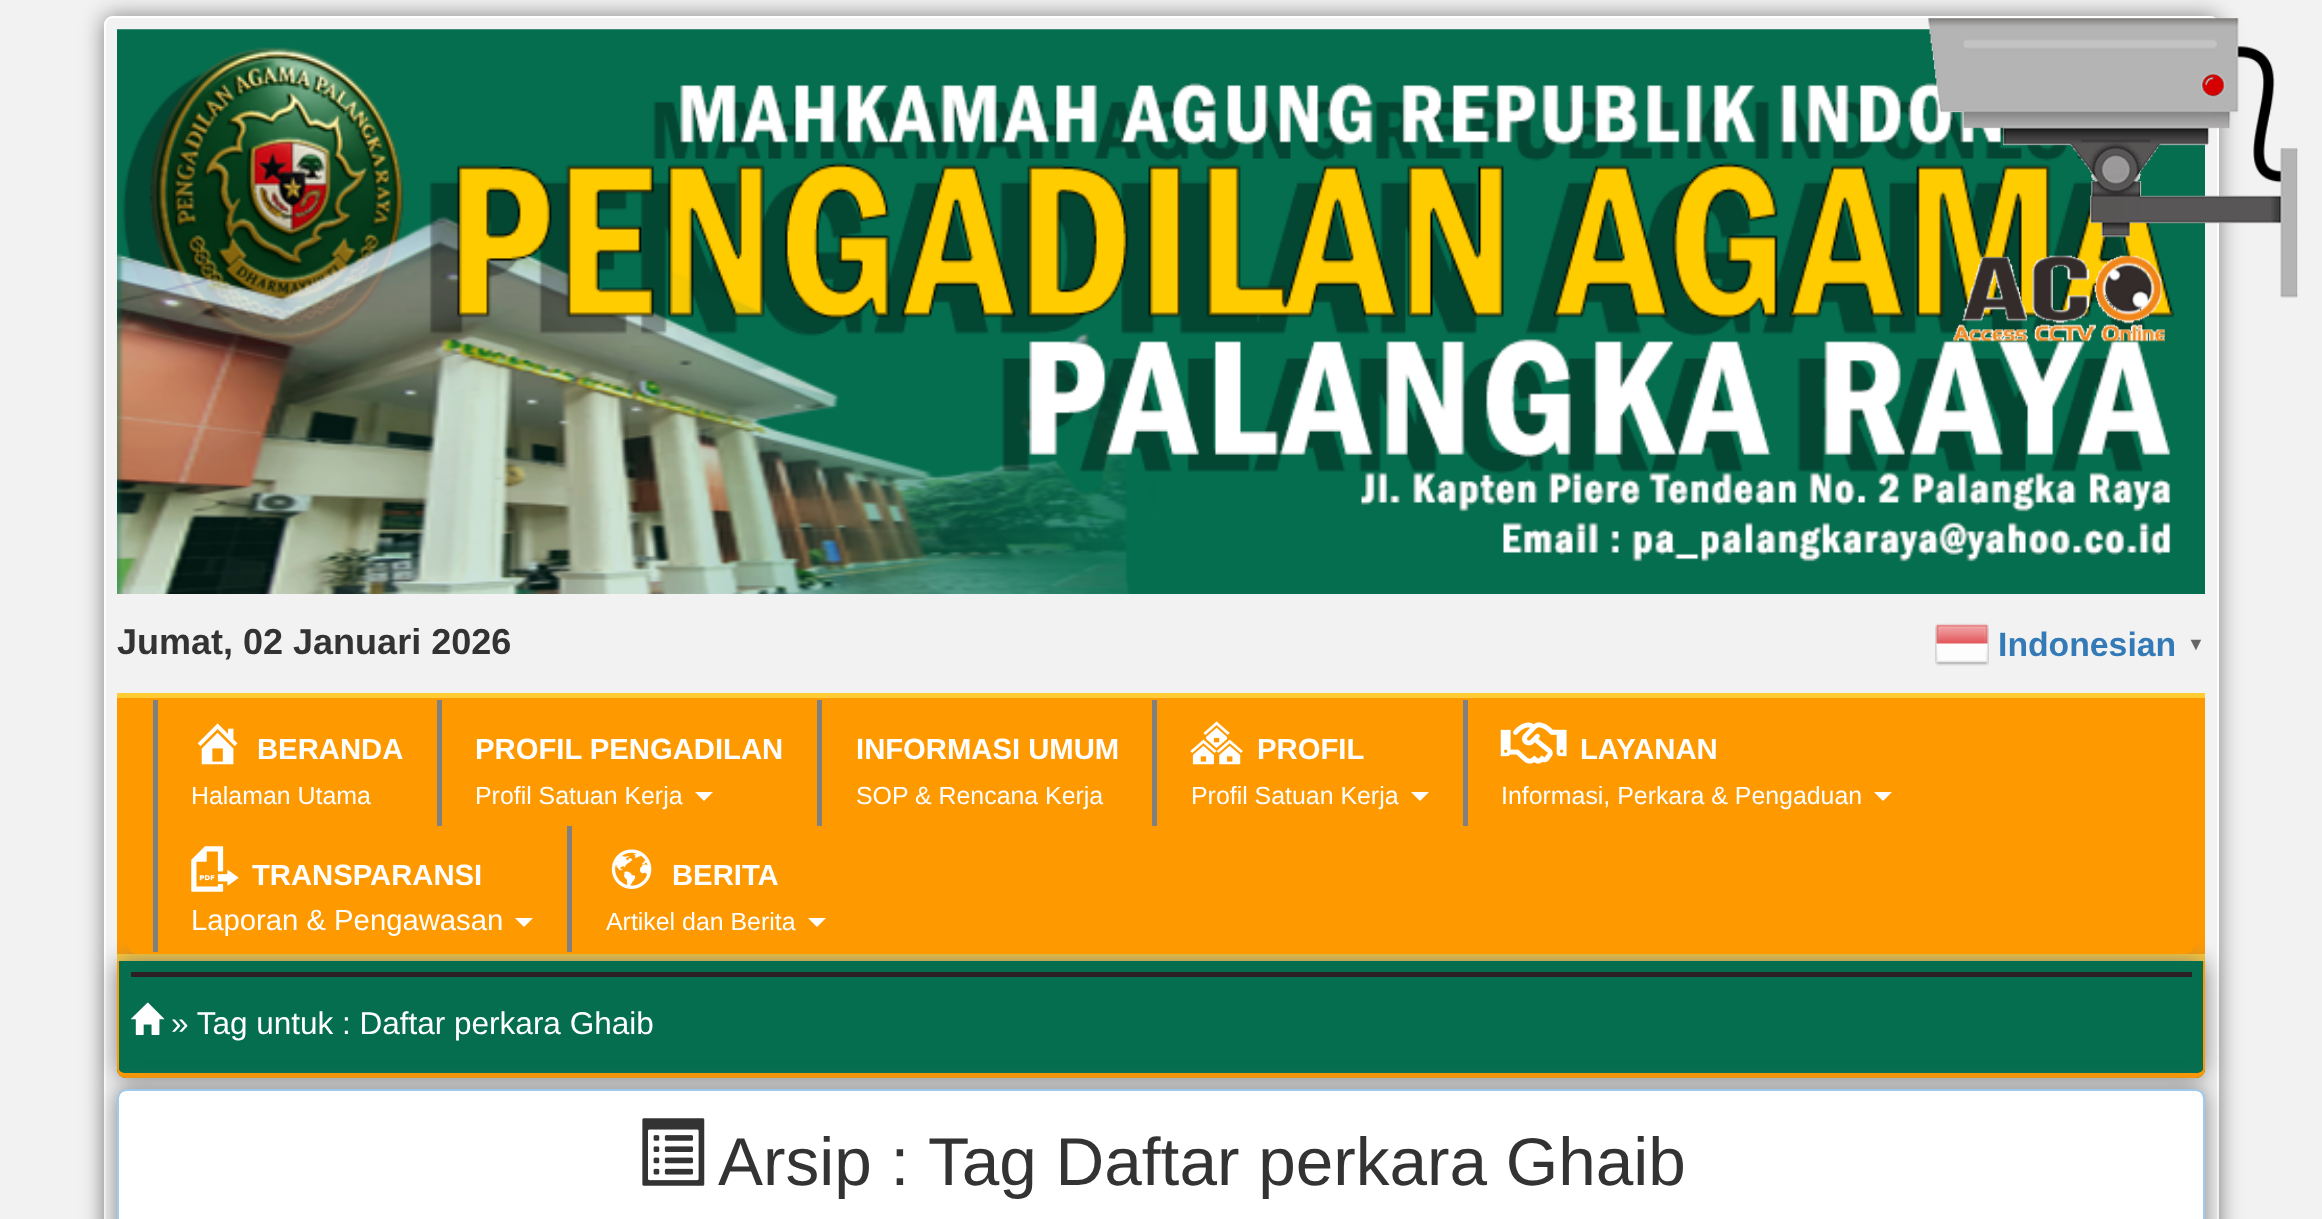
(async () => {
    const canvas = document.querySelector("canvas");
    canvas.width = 2322;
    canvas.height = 1219;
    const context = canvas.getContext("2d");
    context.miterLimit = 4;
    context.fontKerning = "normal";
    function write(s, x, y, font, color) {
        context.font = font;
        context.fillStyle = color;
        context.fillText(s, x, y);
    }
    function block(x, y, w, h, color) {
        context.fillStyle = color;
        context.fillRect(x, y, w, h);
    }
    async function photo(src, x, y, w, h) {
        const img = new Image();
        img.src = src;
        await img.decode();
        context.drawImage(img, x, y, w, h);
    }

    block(0, 0, 2322, 1219, "rgb(242, 242, 242)");
    context.save();
    context.beginPath();
    context.moveTo(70, 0);
    context.lineTo(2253, 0);
    context.lineTo(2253, 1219);
    context.lineTo(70, 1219);
    context.closePath();
    context.moveTo(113, 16);
    context.lineTo(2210, 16);
    context.bezierCurveTo(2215, 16, 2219, 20, 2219, 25);
    context.lineTo(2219, 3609);
    context.bezierCurveTo(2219, 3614, 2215, 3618, 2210, 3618);
    context.lineTo(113, 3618);
    context.bezierCurveTo(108, 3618, 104, 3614, 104, 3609);
    context.lineTo(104, 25);
    context.bezierCurveTo(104, 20, 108, 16, 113, 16);
    context.closePath();
    context.clip("evenodd");
    context.fillStyle = "rgb(128, 128, 128)";
    context.filter = "blur(11px)";
    context.beginPath();
    context.roundRect(104, 16, 2115, 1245, 9);
    context.fill();
    context.filter = "none";
    context.restore();
    context.beginPath();
    context.roundRect(105, 17, 2113, 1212, 8);
    context.strokeStyle = "rgb(255, 255, 255)";
    context.lineWidth = 2;
    context.stroke();
    await photo("media/2.png", 117, 29, 2088, 565);
    await photo("media/1.png", 1928, 18, 370, 324);
    write("Jumat, 02 Januari 2026", 117, 654, "bold 36px Liberation Sans", "rgb(51, 51, 51)");
    await photo("media/3.png", 1935, 623, 54, 43);
    write("Indonesian", 1998, 656, "bold 33.75px Liberation Sans", "rgb(51, 122, 183)");
    write("▼", 2187, 650, "bold 18px Liberation Sans", "rgb(102, 102, 102)");
    block(117, 693, 2088, 5, "rgb(255, 204, 51)");
    block(117, 698, 2088, 256, "rgb(255, 153, 0)");
    block(117, 954, 2088, 7, "rgb(255, 204, 51)");
    context.fillStyle = "rgb(128, 128, 128)";
    context.filter = "blur(11px)";
    context.beginPath();
    context.roundRect(117, 961, 2088, 117, 9);
    context.fill();
    context.filter = "none";
    context.fillStyle = "rgb(255, 153, 0)";
    context.beginPath();
    context.roundRect(129, 699, 2064, 254, 8);
    context.fill();
    context.strokeStyle = "rgb(255, 153, 0)";
    context.stroke();
    block(153, 700, 5, 252, "rgb(128, 128, 128)");
    await photo("media/4.png", 197, 723, 41, 42);
    write("BERANDA", 257, 759, "bold 29.25px Liberation Sans", "rgb(255, 255, 255)");
    write("Halaman Utama", 191, 804, "24.9px Liberation Sans", "rgb(255, 255, 255)");
    block(437, 700, 5, 126, "rgb(128, 128, 128)");
    write("PROFIL PENGADILAN", 475, 759, "bold 29.25px Liberation Sans", "rgb(255, 255, 255)");
    write("Profil Satuan Kerja", 475, 804, "24.9px Liberation Sans", "rgb(255, 255, 255)");
    context.beginPath();
    context.moveTo(695, 792);
    context.lineTo(713, 792);
    context.lineTo(704, 801);
    context.closePath();
    context.fill();
    block(817, 700, 5, 126, "rgb(128, 128, 128)");
    write("INFORMASI UMUM", 856, 759, "bold 29.25px Liberation Sans", "rgb(255, 255, 255)");
    write("SOP & Rencana Kerja", 856, 804, "24.9px Liberation Sans", "rgb(255, 255, 255)");
    block(1152, 700, 5, 126, "rgb(128, 128, 128)");
    await photo("media/5.png", 1190, 721, 53, 44);
    write("PROFIL", 1257, 759, "bold 29.25px Liberation Sans", "rgb(255, 255, 255)");
    write("Profil Satuan Kerja", 1191, 804, "24.9px Liberation Sans", "rgb(255, 255, 255)");
    context.beginPath();
    context.moveTo(1411, 792);
    context.lineTo(1429, 792);
    context.lineTo(1420, 801);
    context.closePath();
    context.fill();
    block(1463, 700, 5, 126, "rgb(128, 128, 128)");
    await photo("media/6.png", 1500, 722, 67, 42);
    write("LAYANAN", 1580, 759, "bold 29.25px Liberation Sans", "rgb(255, 255, 255)");
    write("Informasi, Perkara & Pengaduan", 1501, 804, "24.9px Liberation Sans", "rgb(255, 255, 255)");
    context.beginPath();
    context.moveTo(1874, 792);
    context.lineTo(1892, 792);
    context.lineTo(1883, 801);
    context.closePath();
    context.fill();
    await photo("media/7.png", 191, 846, 48, 46);
    write("TRANSPARANSI", 252, 885, "bold 29.25px Liberation Sans", "rgb(255, 255, 255)");
    write("Laporan & Pengawasan", 191, 930, "29.25px Liberation Sans", "rgb(255, 255, 255)");
    context.beginPath();
    context.moveTo(515, 918);
    context.lineTo(533, 918);
    context.lineTo(524, 927);
    context.closePath();
    context.fill();
    block(567, 826, 5, 126, "rgb(128, 128, 128)");
    await photo("media/8.png", 611, 849, 41, 40);
    write("BERITA", 672, 885, "bold 29.25px Liberation Sans", "rgb(255, 255, 255)");
    write("Artikel dan Berita", 606, 930, "24.9px Liberation Sans", "rgb(255, 255, 255)");
    context.beginPath();
    context.moveTo(808, 918);
    context.lineTo(826, 918);
    context.lineTo(817, 927);
    context.closePath();
    context.fill();
    context.fillStyle = "rgb(5, 110, 79)";
    context.beginPath();
    context.roundRect(117, 961, 2088, 117, [0, 0, 9, 9]);
    context.fill();
    context.fillStyle = "rgb(255, 153, 0)";
    context.beginPath();
    context.moveTo(117, 961);
    context.lineTo(2205, 961);
    context.lineTo(2205, 1069);
    context.bezierCurveTo(2205, 1074, 2201, 1078, 2196, 1078);
    context.lineTo(126, 1078);
    context.bezierCurveTo(121, 1078, 117, 1074, 117, 1069);
    context.closePath();
    context.moveTo(119, 961);
    context.lineTo(2203, 961);
    context.lineTo(2203, 1069);
    context.bezierCurveTo(2203, 1071, 2200, 1073, 2196, 1073);
    context.lineTo(126, 1073);
    context.bezierCurveTo(122, 1073, 119, 1071, 119, 1069);
    context.closePath();
    context.fill("evenodd");
    block(131, 972, 2061, 5, "rgb(45, 32, 37)");
    await photo("media/9.png", 131, 1002, 34, 33);
    write("» Tag untuk : Daftar perkara Ghaib", 171, 1034, "31.5px Liberation Sans", "rgb(255, 255, 255)");
    context.fillStyle = "rgb(128, 128, 128)";
    context.filter = "blur(11px)";
    context.beginPath();
    context.roundRect(117, 1089, 2088, 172, 9);
    context.fill();
    context.filter = "none";
    context.fillStyle = "rgb(255, 255, 255)";
    context.beginPath();
    context.moveTo(126, 1091);
    context.lineTo(2196, 1091);
    context.bezierCurveTo(2200, 1091, 2203, 1094, 2203, 1098);
    context.lineTo(2203, 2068);
    context.bezierCurveTo(2203, 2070, 2200, 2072, 2196, 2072);
    context.lineTo(126, 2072);
    context.bezierCurveTo(122, 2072, 119, 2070, 119, 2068);
    context.lineTo(119, 1098);
    context.bezierCurveTo(119, 1094, 122, 1091, 126, 1091);
    context.closePath();
    context.fill();
    context.beginPath();
    context.roundRect(118, 1090, 2086, 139, 8);
    context.strokeStyle = "rgb(158, 202, 237)";
    context.stroke();
    await photo("media/10.png", 642, 1118, 63, 68);
    write("Arsip :", 718, 1185, "67.5px Liberation Sans", "rgb(51, 51, 51)");
    write("Tag Daftar perkara Ghaib", 928, 1185, "67.5px Liberation Sans", "rgb(51, 51, 51)");
})();
